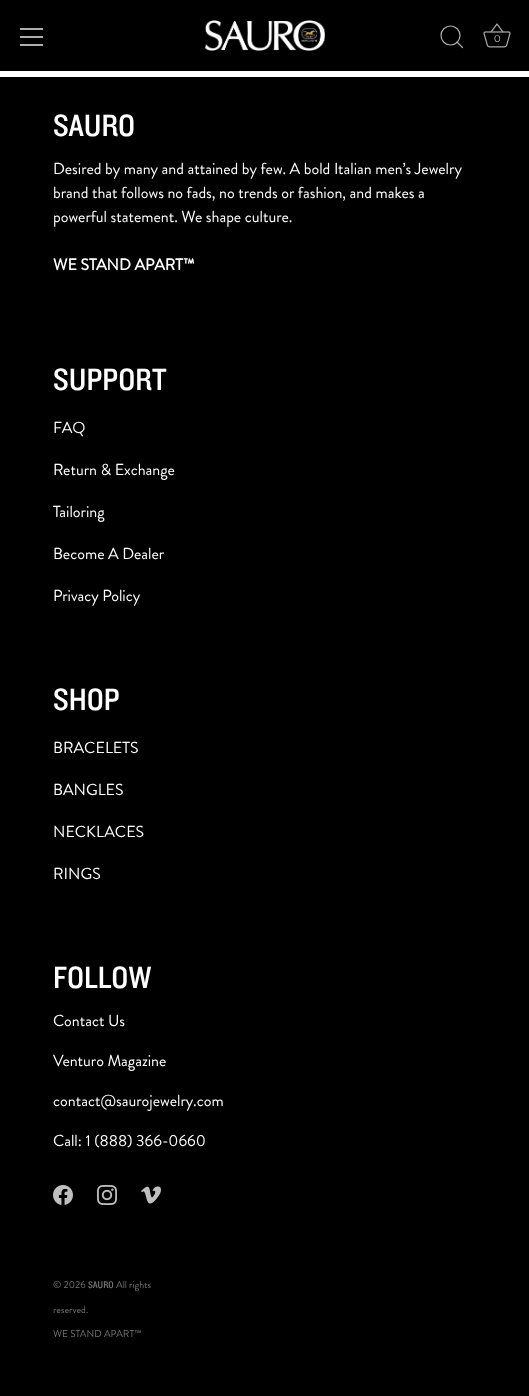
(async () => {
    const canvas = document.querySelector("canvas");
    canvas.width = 529;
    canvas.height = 1396;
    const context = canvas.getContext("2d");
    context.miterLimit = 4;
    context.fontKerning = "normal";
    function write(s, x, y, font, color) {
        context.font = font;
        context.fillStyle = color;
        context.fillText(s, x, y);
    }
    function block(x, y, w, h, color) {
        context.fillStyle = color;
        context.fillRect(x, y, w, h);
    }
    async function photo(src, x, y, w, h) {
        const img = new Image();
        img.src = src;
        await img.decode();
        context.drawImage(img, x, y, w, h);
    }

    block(0, 0, 529, 1396, "rgb(255, 255, 255)");
    block(0, 0, 529, 71, "rgb(0, 0, 0)");
    block(20, 28, 23, 2, "rgb(173, 173, 173)");
    block(20, 36, 23, 2, "rgb(173, 173, 173)");
    block(20, 44, 23, 2, "rgb(173, 173, 173)");
    await photo("media/1.png", 205, 20, 120, 31);
    context.beginPath();
    context.arc(450.5, 35.5, 9.5, 0, Math.PI * 2);
    context.strokeStyle = "rgb(173, 173, 173)";
    context.lineWidth = 1.2;
    context.stroke();
    context.beginPath();
    context.moveTo(462.5, 47.5);
    context.lineTo(457, 42);
    context.lineCap = "round";
    context.lineJoin = "round";
    context.stroke();
    await photo("media/2.png", 483, 23, 28, 25);
    write("0", 494, 42, "100 10px Montserrat", "rgb(173, 173, 173)");
    block(0, 77, 529, 1319, "rgb(0, 0, 0)");
    write("SAURO", 53, 136, "500 32px 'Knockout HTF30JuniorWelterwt'", "rgb(255, 255, 255)");
    write("Desired by many and attained by few. A bold Italian men’s Jewelry", 53, 174, "16px Brandon Grotesque", "rgb(255, 255, 255)");
    write("brand that follows no fads, no trends or fashion, and makes a", 53, 198, "16px Brandon Grotesque", "rgb(255, 255, 255)");
    write("powerful statement. We shape culture.", 53, 222, "16px Brandon Grotesque", "rgb(255, 255, 255)");
    write("WE STAND APART™", 53, 270, "bold 16px Brandon Grotesque", "rgb(255, 255, 255)");
    write("SUPPORT", 53, 390, "500 32px 'Knockout HTF30JuniorWelterwt'", "rgb(255, 255, 255)");
    write("FAQ", 53, 433, "16px Brandon Grotesque", "rgb(255, 255, 255)");
    write("Return & Exchange", 53, 475, "16px Brandon Grotesque", "rgb(255, 255, 255)");
    write("Tailoring", 53, 517, "16px Brandon Grotesque", "rgb(255, 255, 255)");
    write("Become A Dealer", 53, 559, "16px Brandon Grotesque", "rgb(255, 255, 255)");
    write("Privacy Policy", 53, 601, "16px Brandon Grotesque", "rgb(255, 255, 255)");
    write("SHOP", 53, 710, "500 32px 'Knockout HTF30JuniorWelterwt'", "rgb(255, 255, 255)");
    write("BRACELETS", 53, 753, "16px Brandon Grotesque", "rgb(255, 255, 255)");
    write("BANGLES", 53, 795, "16px Brandon Grotesque", "rgb(255, 255, 255)");
    write("NECKLACES", 53, 837, "16px Brandon Grotesque", "rgb(255, 255, 255)");
    write("RINGS", 53, 879, "16px Brandon Grotesque", "rgb(255, 255, 255)");
    write("FOLLOW", 53, 988, "500 32px 'Knockout HTF30JuniorWelterwt'", "rgb(255, 255, 255)");
    write("Contact Us", 53, 1026, "16px Brandon Grotesque", "rgb(255, 255, 255)");
    write("Venturo Magazine", 53, 1066, "16px Brandon Grotesque", "rgb(255, 255, 255)");
    write("contact@saurojewelry.com", 53, 1106, "16px Brandon Grotesque", "rgb(255, 255, 255)");
    write("Call: 1 (888) 366-0660", 53, 1146, "16px Brandon Grotesque", "rgb(255, 255, 255)");
    await photo("media/3.png", 53, 1185, 20, 20);
    await photo("media/4.png", 97, 1185, 20, 20);
    await photo("media/5.png", 141, 1186, 20, 18);
    write("© 2026", 53, 1288, "10px Brandon Grotesque", "rgb(116, 116, 116)");
    write("SAURO", 88, 1288, "500 10px 'Knockout HTF30JuniorWelterwt'", "rgb(116, 116, 116)");
    write("All rights", 116, 1288, "10px Brandon Grotesque", "rgb(116, 116, 116)");
    write("reserved.", 53, 1313, "10px Brandon Grotesque", "rgb(116, 116, 116)");
    write("WE STAND APART™", 53, 1337, "10px Brandon Grotesque", "rgb(116, 116, 116)");
})();
